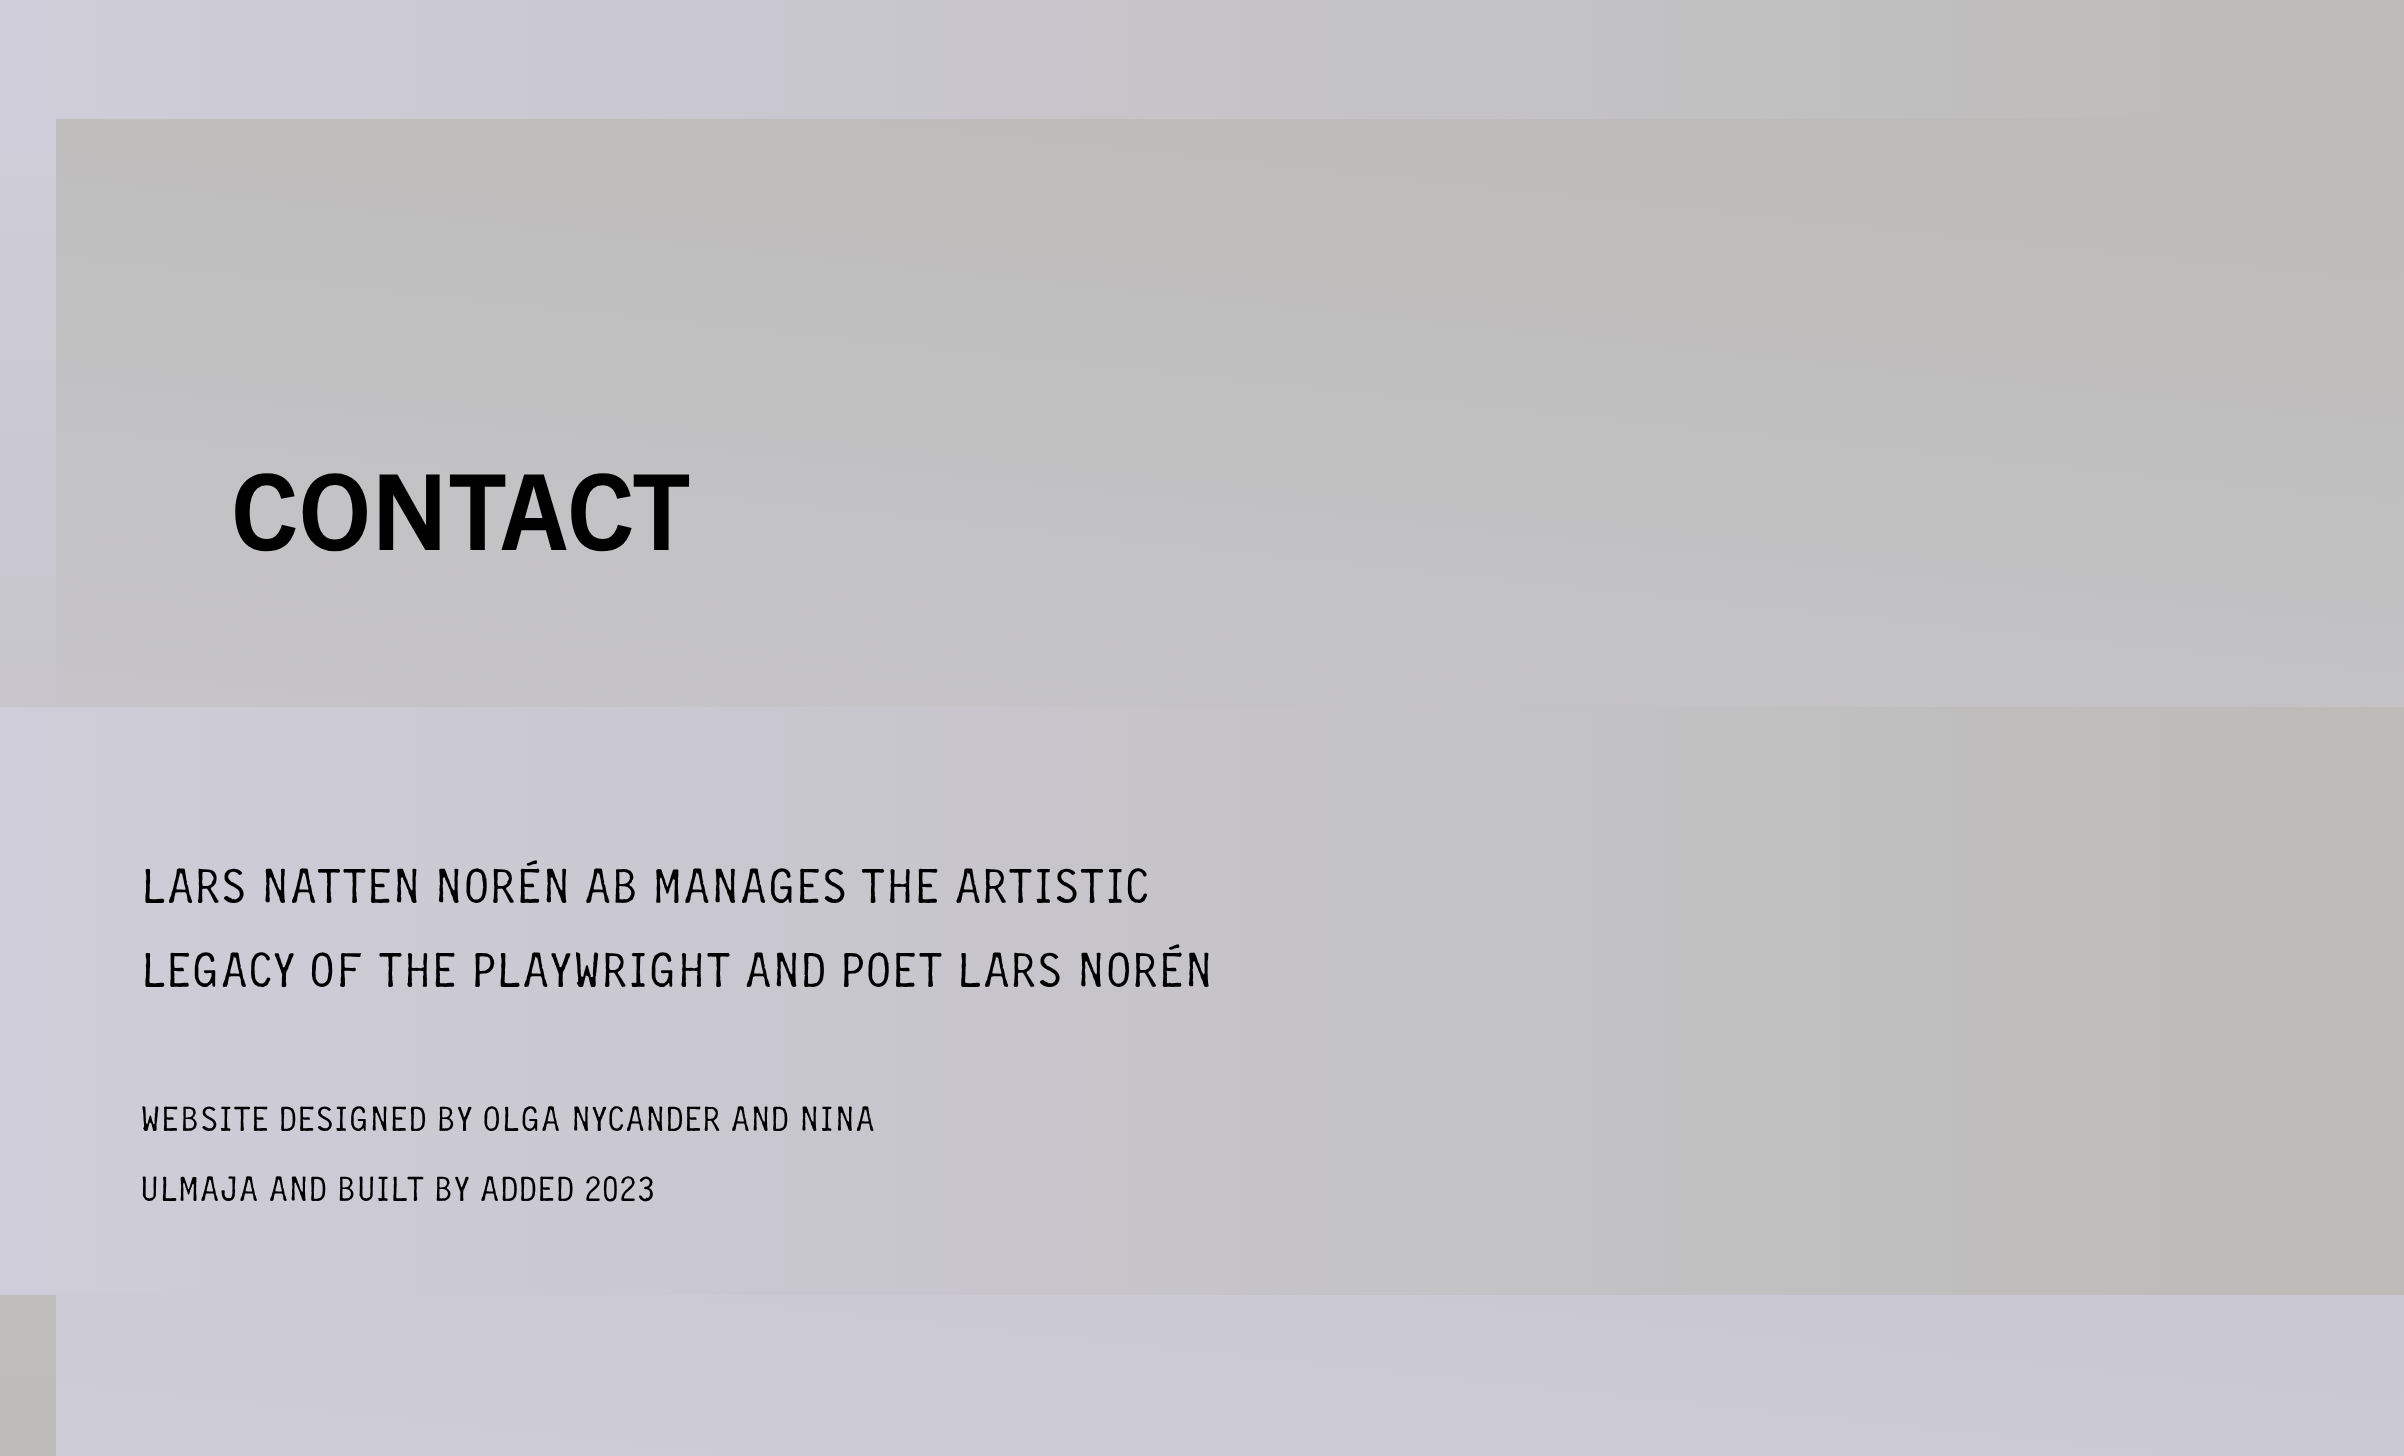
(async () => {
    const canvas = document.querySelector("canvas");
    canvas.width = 2404;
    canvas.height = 1456;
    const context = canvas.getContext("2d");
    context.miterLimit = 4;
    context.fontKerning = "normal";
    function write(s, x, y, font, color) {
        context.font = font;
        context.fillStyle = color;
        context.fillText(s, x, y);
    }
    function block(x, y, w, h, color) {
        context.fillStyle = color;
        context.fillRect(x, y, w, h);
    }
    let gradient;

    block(0, 0, 2404, 1456, "rgb(255, 255, 255)");
    gradient = context.createLinearGradient(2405, -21, 0, -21);
    gradient.addColorStop(0, "rgb(188, 187, 184)");
    gradient.addColorStop(1, "rgb(207, 205, 217)");
    context.fillStyle = gradient;
    context.fillRect(0, 0, 2404, 119);
    gradient = context.createLinearGradient(1202, 119, 1202, 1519);
    gradient.addColorStop(0, "rgb(207, 205, 217)");
    gradient.addColorStop(1, "rgb(188, 187, 184)");
    context.fillStyle = gradient;
    context.fillRect(0, 119, 56, 1337);
    gradient = context.createLinearGradient(1145, 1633, 1316, 4.6);
    gradient.addColorStop(0, "rgb(207, 205, 217)");
    gradient.addColorStop(1, "rgb(188, 187, 184)");
    context.fillStyle = gradient;
    context.fillRect(56, 119, 2348, 1337);
    write("CONTACT", 231, 550, "bold 105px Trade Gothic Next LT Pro", "rgb(0, 0, 0)");
    gradient = context.createLinearGradient(0, 1001, 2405, 1001);
    gradient.addColorStop(0, "rgb(207, 205, 217)");
    gradient.addColorStop(1, "rgb(188, 187, 184)");
    context.fillStyle = gradient;
    context.fillRect(0, 707, 2404, 588);
    write("LARS NATTEN NORÉN AB MANAGES THE ARTISTIC", 140, 903, "49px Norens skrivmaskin", "rgb(0, 0, 0)");
    write("LEGACY OF THE PLAYWRIGHT AND POET LARS NORÉN", 140, 987, "49px Norens skrivmaskin", "rgb(0, 0, 0)");
    write("WEBSITE DESIGNED BY OLGA NYCANDER AND NINA", 140, 1131, "35px Norens skrivmaskin", "rgb(0, 0, 0)");
    write("ULMAJA AND BUILT BY ADDED 2023", 140, 1201, "35px Norens skrivmaskin", "rgb(0, 0, 0)");
})();
